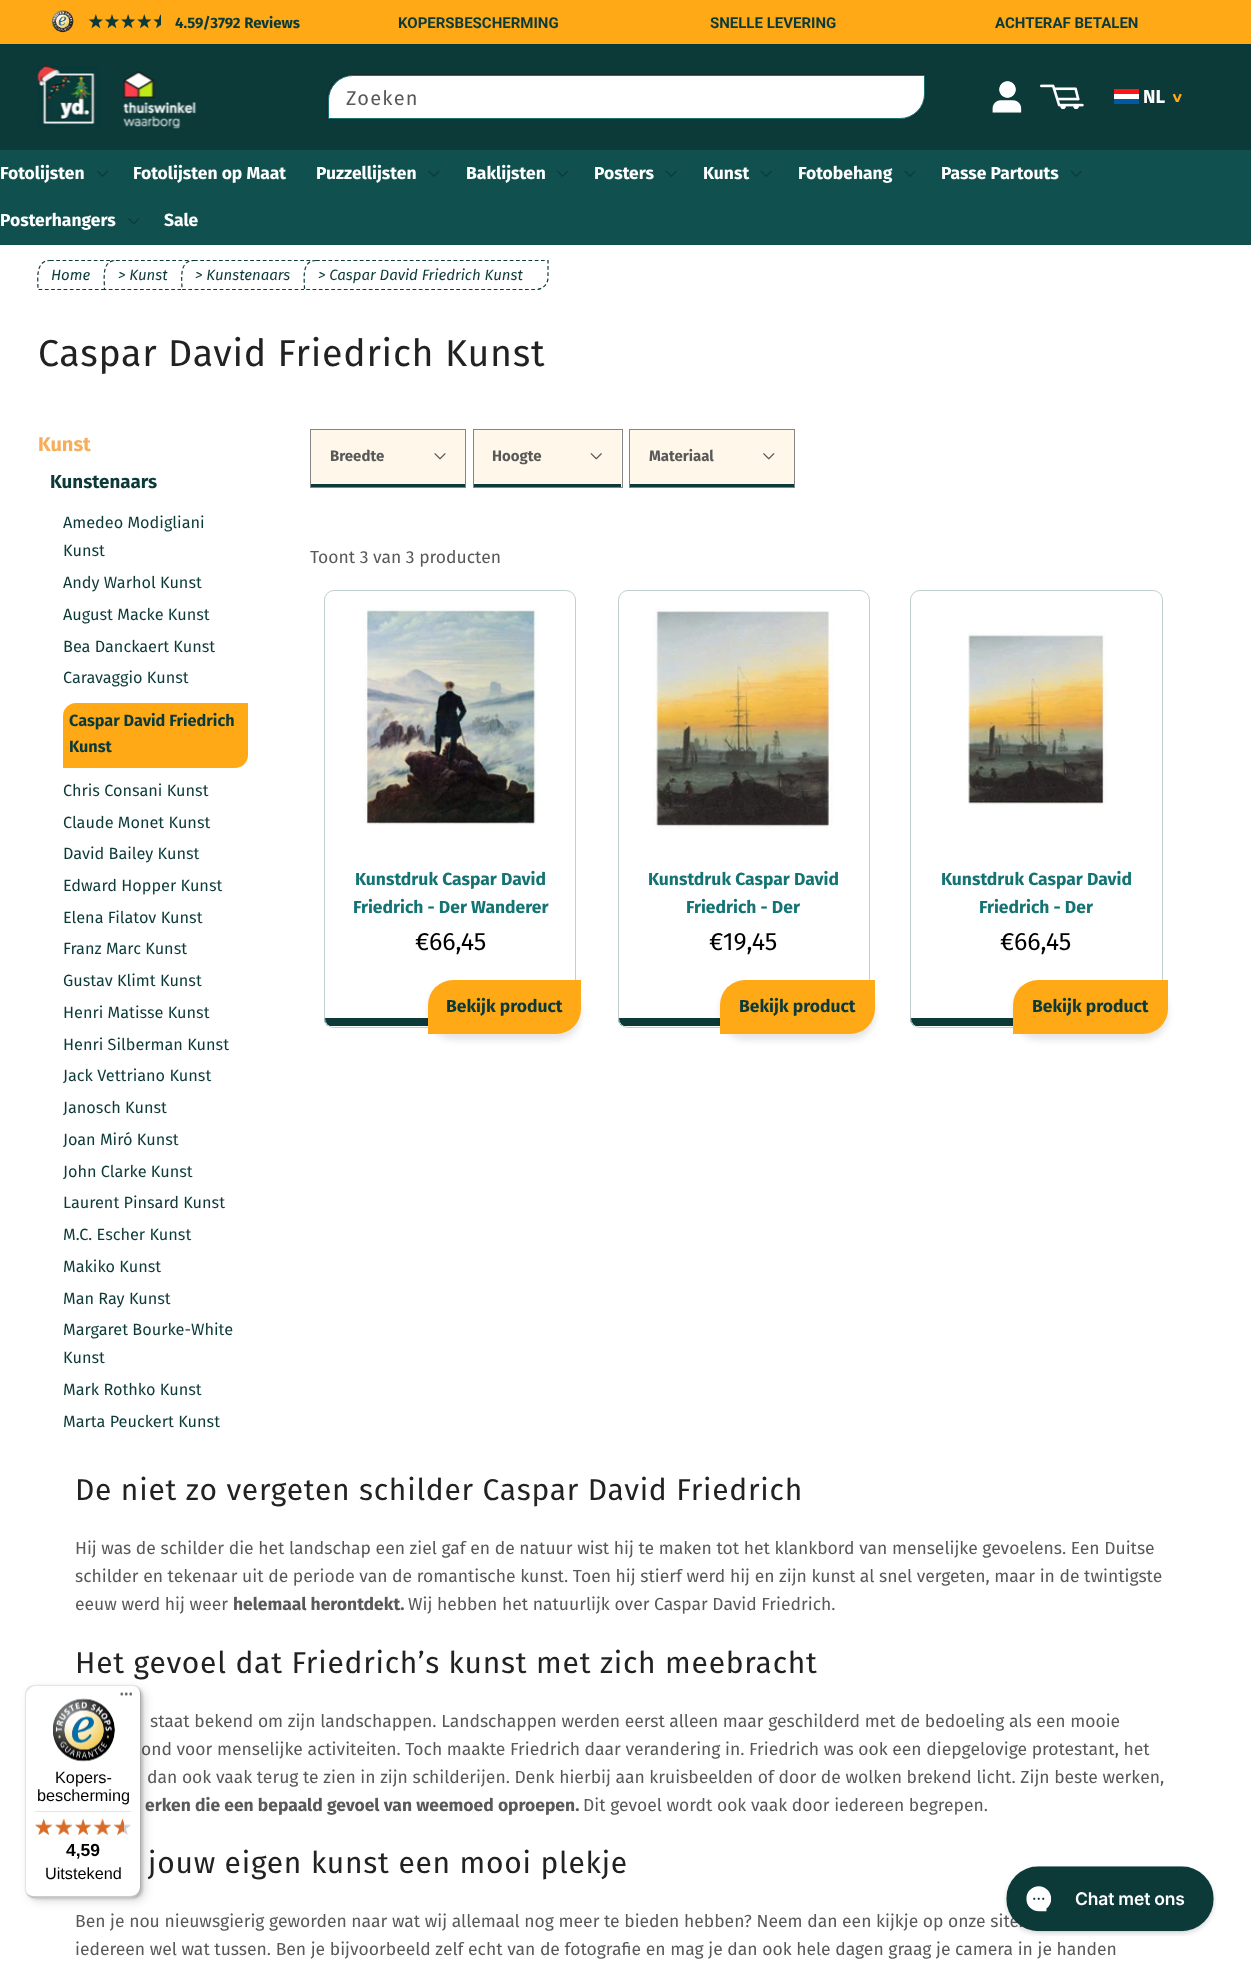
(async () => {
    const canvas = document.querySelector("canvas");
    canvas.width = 1251;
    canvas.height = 1964;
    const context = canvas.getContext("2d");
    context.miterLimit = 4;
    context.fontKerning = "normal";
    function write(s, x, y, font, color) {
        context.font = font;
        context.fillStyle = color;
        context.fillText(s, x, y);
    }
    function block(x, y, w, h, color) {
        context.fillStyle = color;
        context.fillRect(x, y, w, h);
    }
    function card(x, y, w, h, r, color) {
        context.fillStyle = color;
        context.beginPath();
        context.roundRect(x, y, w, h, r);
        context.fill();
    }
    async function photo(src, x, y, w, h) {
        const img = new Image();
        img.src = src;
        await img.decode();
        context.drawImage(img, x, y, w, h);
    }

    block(0, 0, 1251, 1964, "rgb(255, 255, 255)");
    block(0, 0, 1251, 44, "rgb(255, 169, 23)");
    await photo("media/1.png", 52, 10, 22, 23);
    await photo("media/2.png", 88, 14, 73, 15);
    write("4.59/3792 Reviews", 175, 28, "bold 15px Fira Sans", "rgb(12, 58, 57)");
    write("KOPERSBESCHERMING", 398, 28, "bold 15px Roboto", "rgb(12, 58, 57)");
    write("SNELLE LEVERING", 710, 28, "bold 15px Roboto", "rgb(12, 58, 57)");
    write("ACHTERAF BETALEN", 995, 28, "bold 15px Roboto", "rgb(12, 58, 57)");
    block(0, 44, 1251, 106, "rgb(12, 58, 57)");
    context.beginPath();
    context.roundRect(326.5, 74.5, 599, 45, [25.5, 0, 25.5, 0]);
    context.strokeStyle = "rgb(24, 45, 44)";
    context.stroke();
    context.fillStyle = "rgb(255, 255, 255)";
    context.beginPath();
    context.roundRect(328.5, 75.5, 596, 43, [24.5, 0, 24.5, 0]);
    context.fill();
    context.strokeStyle = "rgb(20, 116, 115)";
    context.stroke();
    context.letterSpacing = "1.25px";
    write("Zoeken", 346, 105, "20px Fira Sans", "rgb(89, 89, 89)");
    await photo("media/3.png", 37, 66, 62, 61);
    await photo("media/4.png", 123, 71, 74, 58);
    await photo("media/5.png", 992, 81, 30, 32);
    await photo("media/6.png", 1040, 84, 44, 26);
    block(1114, 89, 25, 5, "rgb(254, 22, 22)");
    block(1114, 94, 25, 5, "rgb(255, 255, 255)");
    block(1114, 99, 25, 5, "rgb(0, 89, 165)");
    context.letterSpacing = "0px";
    write("NL", 1143, 103, "bold 18.75px Fira Sans", "rgb(255, 255, 255)");
    context.fillStyle = "rgb(255, 169, 23)";
    context.save();
    context.translate(1171, 93);
    context.rotate(90 * Math.PI / 180);
    context.fillText(">", 0, 0);
    context.restore();
    block(0, 150, 1251, 95, "rgb(16, 80, 78)");
    write("Fotolijsten", 0, 179, "bold 17.5px Fira Sans", "rgb(255, 255, 255)");
    await photo("media/7.png", 97, 170, 11, 7);
    write("Fotolijsten op Maat", 133, 179, "bold 17.5px Fira Sans", "rgb(255, 255, 255)");
    write("Puzzellijsten", 316, 179, "bold 17.5px Fira Sans", "rgb(255, 255, 255)");
    await photo("media/8.png", 428, 170, 12, 7);
    write("Baklijsten", 466, 179, "bold 17.5px Fira Sans", "rgb(255, 255, 255)");
    await photo("media/7.png", 557, 170, 11, 7);
    write("Posters", 594, 179, "bold 17.5px Fira Sans", "rgb(255, 255, 255)");
    await photo("media/9.png", 665, 170, 12, 7);
    write("Kunst", 703, 179, "bold 17.5px Fira Sans", "rgb(255, 255, 255)");
    await photo("media/9.png", 760, 170, 12, 7);
    write("Fotobehang", 798, 179, "bold 17.5px Fira Sans", "rgb(255, 255, 255)");
    await photo("media/10.png", 904, 171, 12, 6);
    write("Passe Partouts", 941, 179, "bold 17.5px Fira Sans", "rgb(255, 255, 255)");
    await photo("media/9.png", 1070, 170, 12, 7);
    write("Posterhangers", 0, 226, "bold 17.5px Fira Sans", "rgb(255, 255, 255)");
    await photo("media/11.png", 128, 218, 12, 7);
    write("Sale", 164, 226, "bold 17.5px Fira Sans", "rgb(255, 255, 255)");
    context.beginPath();
    context.moveTo(50, 260.5);
    context.lineTo(115.5, 260.5);
    context.lineTo(115.5, 277.5);
    context.bezierCurveTo(115.5, 284, 110.5, 289.5, 104, 289.5);
    context.lineTo(38, 289.5);
    context.bezierCurveTo(38, 279.5, 35, 260.5, 50, 260.5);
    context.closePath();
    context.strokeStyle = "rgb(12, 58, 57)";
    context.lineWidth = 1.2;
    context.setLineDash([3.75, 2.5]);
    context.stroke();
    write("Home", 51, 280, "italic 15px Fira Sans", "rgb(12, 58, 57)");
    context.fillStyle = "rgb(255, 255, 255)";
    context.beginPath();
    context.roundRect(104, 260, 90, 30, [13, 0, 13, 0]);
    context.fill();
    context.beginPath();
    context.moveTo(116, 260.5);
    context.lineTo(193, 260.5);
    context.lineTo(193, 277.5);
    context.bezierCurveTo(193, 284, 188, 289.5, 181, 289.5);
    context.lineTo(104.5, 289.5);
    context.bezierCurveTo(104.5, 279.5, 101, 260.5, 116, 260.5);
    context.closePath();
    context.stroke();
    write("> Kunst", 118, 280, "italic 15px Fira Sans", "rgb(12, 58, 57)");
    context.fillStyle = "rgb(255, 255, 255)";
    context.beginPath();
    context.roundRect(181, 260, 135, 30, [13, 0, 13, 0]);
    context.fill();
    context.beginPath();
    context.moveTo(194, 260.5);
    context.lineTo(315.5, 260.5);
    context.lineTo(315.5, 277.5);
    context.bezierCurveTo(315.5, 284, 310.5, 289.5, 304, 289.5);
    context.lineTo(182, 289.5);
    context.bezierCurveTo(182, 279.5, 178.5, 260.5, 194, 260.5);
    context.closePath();
    context.stroke();
    write("> Kunstenaars", 195, 280, "italic 15px Fira Sans", "rgb(12, 58, 57)");
    context.fillStyle = "rgb(255, 255, 255)";
    context.beginPath();
    context.roundRect(304, 260, 245, 30, [13, 0, 13, 0]);
    context.fill();
    context.beginPath();
    context.moveTo(316, 260.5);
    context.lineTo(548, 260.5);
    context.lineTo(548, 277.5);
    context.bezierCurveTo(548, 284, 543, 289.5, 536, 289.5);
    context.lineTo(304.5, 289.5);
    context.bezierCurveTo(304.5, 279.5, 301, 260.5, 316, 260.5);
    context.closePath();
    context.stroke();
    write("> Caspar David Friedrich Kunst", 318, 280, "italic 15px Fira Sans", "rgb(12, 58, 57)");
    context.letterSpacing = "0.75px";
    write("Caspar David Friedrich Kunst", 38, 366, "37.5px Fira Sans", "rgb(34, 34, 34)");
    context.letterSpacing = "0px";
    write("Kunst", 38, 451, "bold 20px Fira Sans", "rgb(246, 174, 91)");
    write("Kunstenaars", 50, 488, "bold 18.75px Fira Sans", "rgb(12, 58, 57)");
    write("Amedeo Modigliani", 63, 528, "16.25px Fira Sans", "rgb(12, 58, 57)");
    write("Kunst", 63, 556, "16.25px Fira Sans", "rgb(12, 58, 57)");
    write("Andy Warhol Kunst", 63, 588, "16.25px Fira Sans", "rgb(12, 58, 57)");
    write("August Macke Kunst", 63, 620, "16.25px Fira Sans", "rgb(12, 58, 57)");
    write("Bea Danckaert Kunst", 63, 652, "16.25px Fira Sans", "rgb(12, 58, 57)");
    write("Caravaggio Kunst", 63, 683, "16.25px Fira Sans", "rgb(12, 58, 57)");
    context.fillStyle = "rgb(255, 169, 23)";
    context.beginPath();
    context.roundRect(63, 703, 185, 65, [13, 0, 13, 0]);
    context.fill();
    write("Caspar David Friedrich", 69, 726, "bold 16.25px Fira Sans", "rgb(12, 58, 57)");
    write("Kunst", 69, 752, "bold 16.25px Fira Sans", "rgb(12, 58, 57)");
    write("Chris Consani Kunst", 63, 796, "16.25px Fira Sans", "rgb(12, 58, 57)");
    write("Claude Monet Kunst", 63, 828, "16.25px Fira Sans", "rgb(12, 58, 57)");
    write("David Bailey Kunst", 63, 859, "16.25px Fira Sans", "rgb(12, 58, 57)");
    write("Edward Hopper Kunst", 63, 891, "16.25px Fira Sans", "rgb(12, 58, 57)");
    write("Elena Filatov Kunst", 63, 923, "16.25px Fira Sans", "rgb(12, 58, 57)");
    write("Franz Marc Kunst", 63, 954, "16.25px Fira Sans", "rgb(12, 58, 57)");
    write("Gustav Klimt Kunst", 63, 986, "16.25px Fira Sans", "rgb(12, 58, 57)");
    write("Henri Matisse Kunst", 63, 1018, "16.25px Fira Sans", "rgb(12, 58, 57)");
    write("Henri Silberman Kunst", 63, 1050, "16.25px Fira Sans", "rgb(12, 58, 57)");
    write("Jack Vettriano Kunst", 63, 1081, "16.25px Fira Sans", "rgb(12, 58, 57)");
    write("Janosch Kunst", 63, 1113, "16.25px Fira Sans", "rgb(12, 58, 57)");
    write("Joan Miró Kunst", 63, 1145, "16.25px Fira Sans", "rgb(12, 58, 57)");
    write("John Clarke Kunst", 63, 1177, "16.25px Fira Sans", "rgb(12, 58, 57)");
    write("Laurent Pinsard Kunst", 63, 1208, "16.25px Fira Sans", "rgb(12, 58, 57)");
    write("M.C. Escher Kunst", 63, 1240, "16.25px Fira Sans", "rgb(12, 58, 57)");
    write("Makiko Kunst", 63, 1272, "16.25px Fira Sans", "rgb(12, 58, 57)");
    write("Man Ray Kunst", 63, 1304, "16.25px Fira Sans", "rgb(12, 58, 57)");
    write("Margaret Bourke-White", 63, 1335, "16.25px Fira Sans", "rgb(12, 58, 57)");
    write("Kunst", 63, 1363, "16.25px Fira Sans", "rgb(12, 58, 57)");
    write("Mark Rothko Kunst", 63, 1395, "16.25px Fira Sans", "rgb(12, 58, 57)");
    write("Marta Peuckert Kunst", 63, 1427, "16.25px Fira Sans", "rgb(12, 58, 57)");
    context.strokeStyle = "rgb(133, 133, 133)";
    context.lineWidth = 1;
    context.setLineDash([]);
    context.strokeRect(310.5, 429.5, 155, 58);
    block(311, 430, 154, 54, "rgb(255, 247, 234)");
    block(311, 484, 154, 3, "rgb(12, 58, 57)");
    write("Breedte", 330, 461, "bold 15px Fira Sans", "rgb(89, 89, 89)");
    await photo("media/12.png", 434, 453, 12, 7);
    context.strokeRect(473.5, 429.5, 149, 58);
    block(474, 430, 147, 54, "rgb(255, 247, 234)");
    block(474, 484, 147, 3, "rgb(12, 58, 57)");
    write("Hoogte", 492, 461, "bold 15px Fira Sans", "rgb(89, 89, 89)");
    await photo("media/13.png", 590, 453, 12, 7);
    context.strokeRect(629.5, 429.5, 165, 58);
    block(630, 430, 164, 54, "rgb(255, 247, 234)");
    block(630, 484, 164, 3, "rgb(12, 58, 57)");
    write("Materiaal", 649, 461, "bold 15px Fira Sans", "rgb(89, 89, 89)");
    await photo("media/14.png", 763, 453, 12, 7);
    write("Toont 3 van 3 producten", 310, 563, "17.5px Fira Sans", "rgb(89, 89, 89)");
    context.save();
    context.beginPath();
    context.roundRect(324, 590, 252, 438, 10);
    context.clip();
    block(324, 1018, 104, 8, "rgb(12, 58, 57)");
    context.restore();
    context.beginPath();
    context.roundRect(324.5, 590.5, 251, 437, 9.5);
    context.strokeStyle = "rgb(192, 207, 207)";
    context.stroke();
    await photo("media/15.png", 363, 608, 177, 217);
    write("Kunstdruk Caspar David", 355, 885, "bold 17.5px Fira Sans", "rgb(20, 116, 115)");
    write("Friedrich - Der Wanderer", 353, 913, "bold 17.5px Fira Sans", "rgb(20, 116, 115)");
    write("€66,45", 415, 950, "25px Fira Sans", "rgb(0, 0, 0)");
    context.fillStyle = "rgba(0, 0, 0, 0.1)";
    context.filter = "blur(3px)";
    context.beginPath();
    context.roundRect(428, 986, 153, 54, 25);
    context.fill();
    context.filter = "none";
    context.fillStyle = "rgb(255, 169, 23)";
    context.beginPath();
    context.roundRect(428, 980, 153, 54, [25, 0, 25, 0]);
    context.fill();
    write("Bekijk product", 446, 1012, "bold 17.5px Fira Sans", "rgb(12, 58, 57)");
    context.save();
    context.beginPath();
    context.roundRect(618, 590, 252, 438, 10);
    context.clip();
    block(618, 1018, 102, 8, "rgb(12, 58, 57)");
    context.restore();
    context.beginPath();
    context.roundRect(618.5, 590.5, 251, 437, 9.5);
    context.stroke();
    await photo("media/16.png", 653, 609, 181, 220);
    write("Kunstdruk Caspar David", 648, 885, "bold 17.5px Fira Sans", "rgb(20, 116, 115)");
    write("Friedrich - Der", 686, 913, "bold 17.5px Fira Sans", "rgb(20, 116, 115)");
    write("€19,45", 709, 950, "25px Fira Sans", "rgb(0, 0, 0)");
    context.fillStyle = "rgba(0, 0, 0, 0.1)";
    context.filter = "blur(3px)";
    context.beginPath();
    context.roundRect(720, 986, 155, 54, 25);
    context.fill();
    context.filter = "none";
    context.fillStyle = "rgb(255, 169, 23)";
    context.beginPath();
    context.roundRect(720, 980, 155, 54, [25, 0, 25, 0]);
    context.fill();
    write("Bekijk product", 739, 1012, "bold 17.5px Fira Sans", "rgb(12, 58, 57)");
    context.save();
    context.beginPath();
    context.roundRect(910, 590, 253, 438, 10);
    context.clip();
    block(910, 1018, 103, 8, "rgb(12, 58, 57)");
    context.restore();
    context.beginPath();
    context.roundRect(910.5, 590.5, 252, 437, 9.5);
    context.stroke();
    await photo("media/17.png", 967, 632, 140, 173);
    write("Kunstdruk Caspar David", 941, 885, "bold 17.5px Fira Sans", "rgb(20, 116, 115)");
    write("Friedrich - Der", 979, 913, "bold 17.5px Fira Sans", "rgb(20, 116, 115)");
    write("€66,45", 1000, 950, "25px Fira Sans", "rgb(0, 0, 0)");
    context.fillStyle = "rgba(0, 0, 0, 0.1)";
    context.filter = "blur(3px)";
    context.beginPath();
    context.roundRect(1013, 986, 155, 54, 25);
    context.fill();
    context.filter = "none";
    context.fillStyle = "rgb(255, 169, 23)";
    context.beginPath();
    context.roundRect(1013, 980, 155, 54, [25, 0, 25, 0]);
    context.fill();
    write("Bekijk product", 1032, 1012, "bold 17.5px Fira Sans", "rgb(12, 58, 57)");
    context.letterSpacing = "0.75px";
    write("De niet zo vergeten schilder Caspar David Friedrich", 75, 1500, "30px Fira Sans", "rgb(34, 34, 34)");
    context.letterSpacing = "0px";
    write("Hij was de schilder die het landschap een ziel gaf en de natuur wist hij te maken tot het klankbord van menselijke gevoelens. Een Duitse", 75, 1554, "17.5px Fira Sans", "rgb(89, 89, 89)");
    write("schilder en tekenaar uit de periode van de romantische kunst. Toen hij stierf werd hij en zijn kunst al snel vergeten, maar in de twintigste", 75, 1582, "17.5px Fira Sans", "rgb(89, 89, 89)");
    write("eeuw werd hij weer", 75, 1610, "17.5px Fira Sans", "rgb(89, 89, 89)");
    write("helemaal herontdekt.", 233, 1610, "bold 17.5px Fira Sans", "rgb(89, 89, 89)");
    write("Wij hebben het natuurlijk over Caspar David Friedrich.", 408, 1610, "17.5px Fira Sans", "rgb(89, 89, 89)");
    context.letterSpacing = "0.75px";
    write("Het gevoel dat Friedrich’s kunst met zich meebracht", 75, 1673, "30px Fira Sans", "rgb(34, 34, 34)");
    context.letterSpacing = "0px";
    write("staat bekend om zijn landschappen. Landschappen werden eerst alleen maar geschilderd met de bedoeling als een mooie", 150, 1727, "17.5px Fira Sans", "rgb(89, 89, 89)");
    write("ond voor menselijke activiteiten. Toch maakte Friedrich daar verandering in. Friedrich was ook een diepgelovige protestant, het", 141, 1755, "17.5px Fira Sans", "rgb(89, 89, 89)");
    write("dan ook vaak terug te zien in zijn schilderijen. Denk hierbij aan kruisbeelden of door de wolken brekend licht. Zijn beste werken,", 147, 1783, "17.5px Fira Sans", "rgb(89, 89, 89)");
    write("erken die een bepaald gevoel van weemoed oproepen.", 145, 1811, "bold 17.5px Fira Sans", "rgb(89, 89, 89)");
    write("Dit gevoel wordt ook vaak door iedereen begrepen.", 583, 1811, "17.5px Fira Sans", "rgb(89, 89, 89)");
    context.letterSpacing = "0.75px";
    write("jouw eigen kunst een mooi plekje", 148, 1873, "30px Fira Sans", "rgb(34, 34, 34)");
    context.letterSpacing = "0px";
    write("Ben je nou nieuwsgierig geworden naar wat wij allemaal nog meer te bieden hebben? Neem dan een kijkje op onze site.", 75, 1927, "17.5px Fira Sans", "rgb(89, 89, 89)");
    write("iedereen wel wat tussen. Ben je bijvoorbeeld zelf echt van de fotografie en mag je dan ook hele dagen graag je camera in je handen", 75, 1955, "17.5px Fira Sans", "rgb(89, 89, 89)");
    context.fillStyle = "rgba(0, 0, 0, 0.15)";
    context.filter = "blur(5px)";
    context.beginPath();
    context.roundRect(29, 1689, 116, 212, 10);
    context.fill();
    context.filter = "none";
    context.filter = "blur(1px)";
    context.beginPath();
    context.roundRect(26, 1686, 117, 213, 10);
    context.fill();
    context.filter = "none";
    card(25, 1685, 116, 213, 10, "rgb(255, 255, 255)");
    context.fillStyle = "rgba(0, 0, 0, 0.1)";
    context.beginPath();
    context.moveTo(36, 1686);
    context.lineTo(132, 1686);
    context.bezierCurveTo(135, 1686, 137, 1687, 139, 1688);
    context.bezierCurveTo(137, 1686, 134, 1685, 131, 1685);
    context.lineTo(35, 1685);
    context.bezierCurveTo(29, 1685, 25, 1689, 25, 1695);
    context.lineTo(25, 1888);
    context.bezierCurveTo(25, 1892, 27, 1895, 30, 1897);
    context.bezierCurveTo(28, 1895, 26, 1892, 26, 1889);
    context.lineTo(26, 1696);
    context.bezierCurveTo(26, 1691, 31, 1686, 36, 1686);
    context.closePath();
    context.fill();
    context.fillStyle = "rgba(0, 0, 0, 0.2)";
    context.beginPath();
    context.moveTo(26, 1892);
    context.bezierCurveTo(28, 1896, 31, 1898, 35, 1898);
    context.lineTo(131, 1898);
    context.bezierCurveTo(137, 1898, 141, 1894, 141, 1888);
    context.lineTo(141, 1695);
    context.bezierCurveTo(141, 1693, 140, 1690, 139, 1689);
    context.bezierCurveTo(140, 1690, 140, 1692, 140, 1694);
    context.lineTo(140, 1886);
    context.bezierCurveTo(140, 1892, 136, 1896, 130, 1896);
    context.lineTo(34, 1896);
    context.bezierCurveTo(31, 1896, 28, 1895, 26, 1892);
    context.closePath();
    context.fill();
    context.fillStyle = "rgba(50, 50, 50, 0.2)";
    context.beginPath();
    context.moveTo(26, 1893);
    context.bezierCurveTo(28, 1896, 31, 1898, 35, 1898);
    context.lineTo(131, 1898);
    context.bezierCurveTo(137, 1898, 141, 1894, 141, 1888);
    context.lineTo(141, 1695);
    context.bezierCurveTo(141, 1692, 140, 1689, 137, 1687);
    context.bezierCurveTo(139, 1689, 140, 1692, 140, 1694);
    context.lineTo(140, 1887);
    context.bezierCurveTo(140, 1892, 136, 1897, 130, 1897);
    context.lineTo(34, 1897);
    context.bezierCurveTo(31, 1897, 28, 1895, 26, 1893);
    context.closePath();
    context.fill();
    await photo("media/18.png", 120, 1692, 12, 4);
    context.fillStyle = "rgba(255, 255, 255, 0.3)";
    context.beginPath();
    context.moveTo(26, 1893);
    context.bezierCurveTo(28, 1896, 31, 1898, 35, 1898);
    context.lineTo(131, 1898);
    context.bezierCurveTo(137, 1898, 141, 1894, 141, 1888);
    context.lineTo(141, 1887);
    context.bezierCurveTo(141, 1892, 136, 1897, 131, 1897);
    context.lineTo(34, 1897);
    context.bezierCurveTo(31, 1897, 28, 1895, 26, 1893);
    context.closePath();
    context.fill();
    await photo("media/19.png", 53, 1698, 62, 64);
    write("Kopers-", 55, 1783, "16.25px Liberation Sans", "rgb(0, 0, 0)");
    write("bescherming", 37, 1801, "16.25px Liberation Sans", "rgb(0, 0, 0)");
    block(35, 1811, 96, 1, "rgb(229, 229, 229)");
    await photo("media/25.png", 35, 1819, 17, 16);
    await photo("media/20.png", 35, 1818, 17, 17);
    await photo("media/26.png", 55, 1819, 17, 16);
    await photo("media/21.png", 55, 1818, 18, 17);
    await photo("media/27.png", 75, 1819, 16, 16);
    await photo("media/22.png", 75, 1818, 16, 17);
    await photo("media/28.png", 93, 1819, 18, 16);
    await photo("media/23.png", 93, 1818, 18, 17);
    await photo("media/29.png", 114, 1819, 17, 16);
    await photo("media/24.png", 114, 1818, 10, 17);
    write("4,59", 66, 1856, "bold 17.5px Liberation Sans", "rgb(0, 0, 0)");
    write("Uitstekend", 45, 1879, "16.25px Liberation Sans", "rgb(0, 0, 0)");
    await photo("media/30.png", 1004, 1866, 212, 70);
})();
